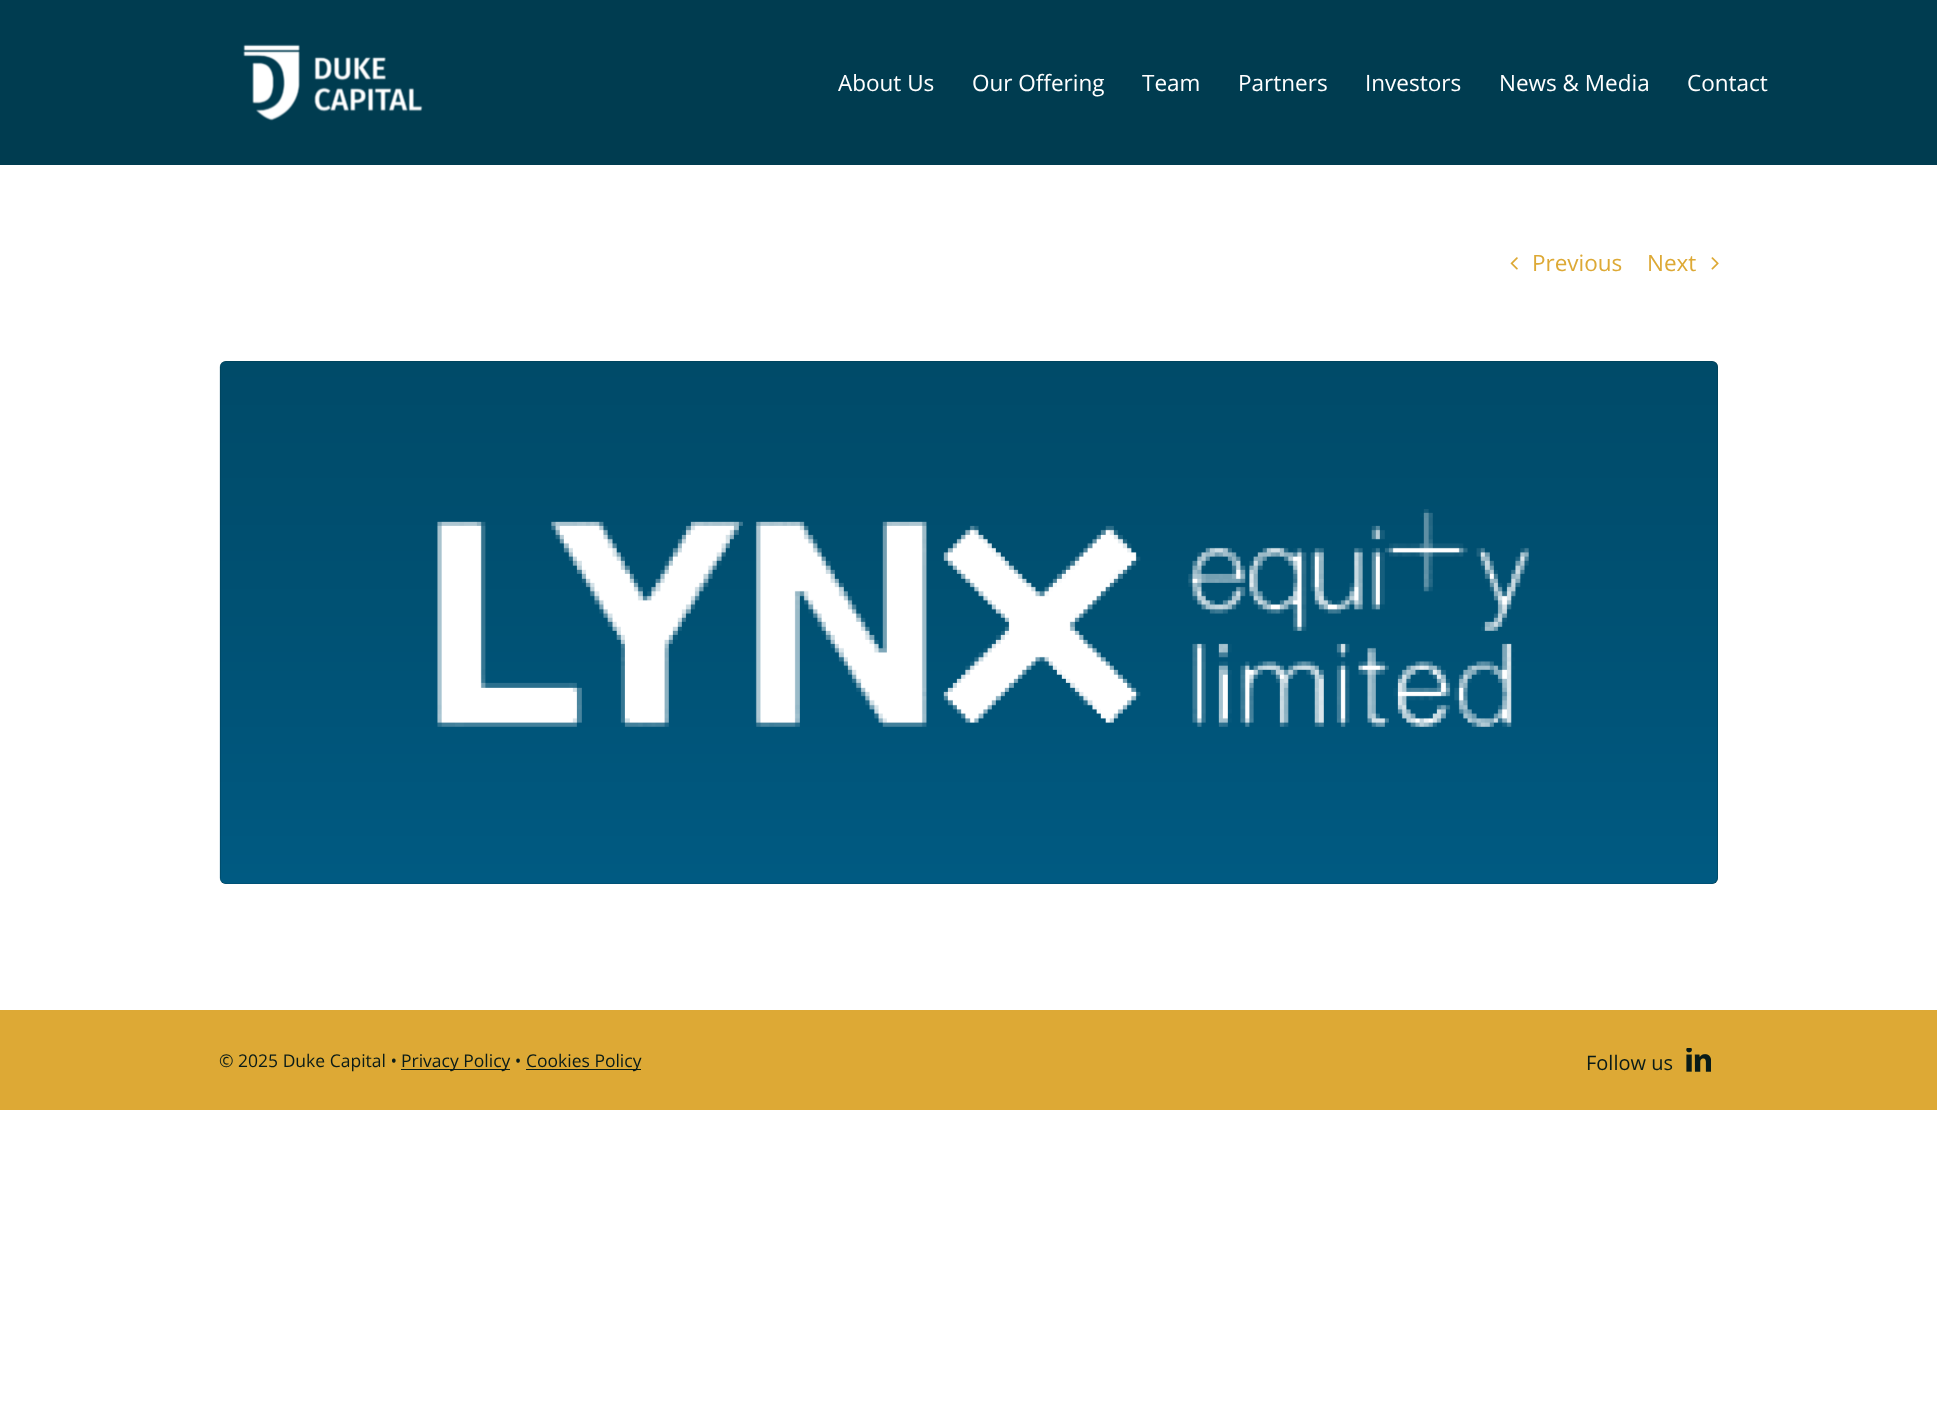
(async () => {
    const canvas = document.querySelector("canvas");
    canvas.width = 1937;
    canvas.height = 1412;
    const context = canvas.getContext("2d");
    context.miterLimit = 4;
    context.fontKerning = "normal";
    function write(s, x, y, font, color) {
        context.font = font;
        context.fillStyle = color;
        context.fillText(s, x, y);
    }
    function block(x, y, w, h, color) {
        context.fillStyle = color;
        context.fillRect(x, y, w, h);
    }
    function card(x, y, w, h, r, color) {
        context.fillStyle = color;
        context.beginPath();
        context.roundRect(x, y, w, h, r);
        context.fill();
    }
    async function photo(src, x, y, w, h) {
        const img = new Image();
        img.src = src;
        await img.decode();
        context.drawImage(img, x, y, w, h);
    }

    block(0, 0, 1937, 1412, "rgb(255, 255, 255)");
    block(0, 0, 1937, 165, "rgb(0, 60, 80)");
    await photo("media/1.png", 243, 44, 180, 77);
    write("About Us", 838, 91, "22.5px Open Sans", "rgb(255, 255, 255)");
    write("Our Offering", 972, 91, "22.5px Open Sans", "rgb(255, 255, 255)");
    write("Team", 1142, 91, "22.5px Open Sans", "rgb(255, 255, 255)");
    write("Partners", 1238, 91, "22.5px Open Sans", "rgb(255, 255, 255)");
    write("Investors", 1365, 91, "22.5px Open Sans", "rgb(255, 255, 255)");
    write("News & Media", 1499, 91, "22.5px Open Sans", "rgb(255, 255, 255)");
    write("Contact", 1687, 91, "22.5px Open Sans", "rgb(255, 255, 255)");
    await photo("media/2.png", 1510, 257, 8, 13);
    write("Previous", 1532, 271, "22.5px Open Sans", "rgb(221, 169, 53)");
    write("Next", 1647, 271, "22.5px Open Sans", "rgb(221, 169, 53)");
    await photo("media/3.png", 1711, 257, 8, 13);
    card(220, 361, 1498, 523, 6, "rgb(0, 60, 80)");
    await photo("media/4.png", 219, 361, 1499, 523);
    await photo("media/5.png", 437, 509, 1092, 218);
    block(0, 1010, 1937, 100, "rgb(221, 169, 53)");
    write("© 2025 Duke Capital •", 219, 1067, "17.5px Open Sans", "rgb(9, 27, 24)");
    block(401, 1069, 109, 1, "rgb(9, 27, 24)");
    write("Privacy Policy •", 401, 1067, "17.5px Open Sans", "rgb(9, 27, 24)");
    block(526, 1069, 115, 1, "rgb(9, 27, 24)");
    write("Cookies Policy", 526, 1067, "17.5px Open Sans", "rgb(9, 27, 24)");
    write("Follow us", 1586, 1070, "20px Open Sans", "rgb(9, 27, 24)");
    await photo("media/6.png", 1686, 1048, 25, 24);
})();
